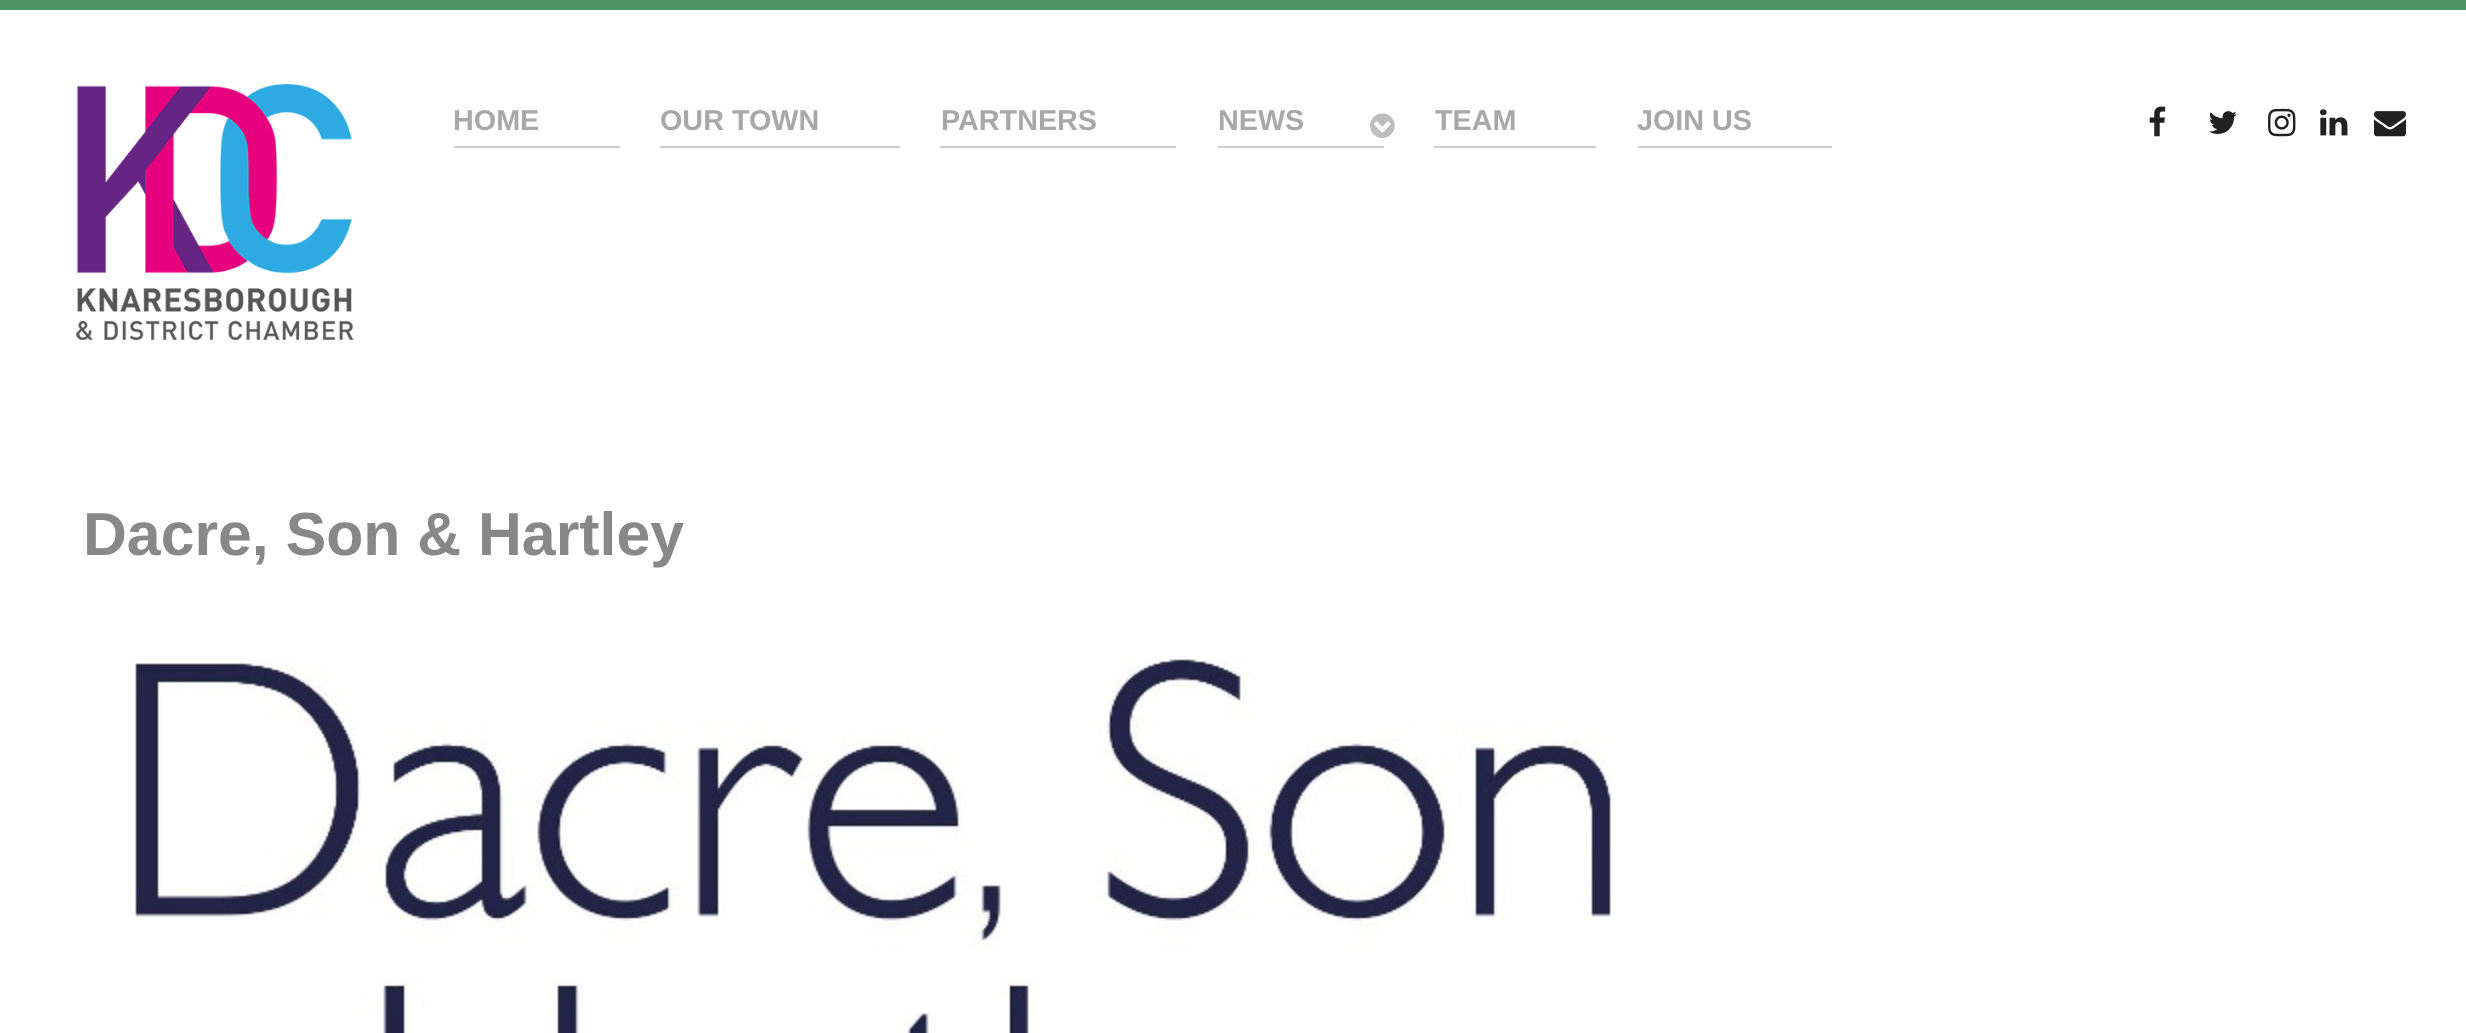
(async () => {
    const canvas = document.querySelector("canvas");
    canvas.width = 2466;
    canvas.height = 1033;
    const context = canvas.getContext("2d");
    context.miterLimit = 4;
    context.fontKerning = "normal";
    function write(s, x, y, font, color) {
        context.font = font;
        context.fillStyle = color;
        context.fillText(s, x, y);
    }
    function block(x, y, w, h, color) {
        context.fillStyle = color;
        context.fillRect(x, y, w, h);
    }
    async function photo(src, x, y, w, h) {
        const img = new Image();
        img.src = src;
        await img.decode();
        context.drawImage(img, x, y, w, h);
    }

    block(0, 0, 2466, 1033, "rgb(255, 255, 255)");
    block(0, 0, 2466, 10, "rgb(78, 147, 100)");
    await photo("media/1.png", 76, 84, 279, 256);
    write("HOME", 453, 130, "bold 28.75px Liberation Sans", "rgb(168, 168, 168)");
    block(454, 146, 166, 2, "rgb(206, 206, 206)");
    write("OUR TOWN", 660, 130, "bold 28.75px Liberation Sans", "rgb(168, 168, 168)");
    block(660, 146, 240, 2, "rgb(206, 206, 206)");
    write("PARTNERS", 941, 130, "bold 28.75px Liberation Sans", "rgb(168, 168, 168)");
    block(940, 146, 236, 2, "rgb(206, 206, 206)");
    write("NEWS", 1218, 130, "bold 28.75px Liberation Sans", "rgb(168, 168, 168)");
    block(1218, 146, 166, 2, "rgb(206, 206, 206)");
    await photo("media/2.png", 1370, 113, 25, 25);
    write("TEAM", 1435, 130, "bold 28.75px Liberation Sans", "rgb(168, 168, 168)");
    block(1434, 146, 162, 2, "rgb(206, 206, 206)");
    write("JOIN US", 1637, 130, "bold 28.75px Liberation Sans", "rgb(168, 168, 168)");
    block(1638, 146, 194, 2, "rgb(206, 206, 206)");
    await photo("media/3.png", 2149, 106, 17, 31);
    await photo("media/4.png", 2209, 111, 28, 23);
    await photo("media/5.png", 2268, 108, 28, 29);
    await photo("media/6.png", 2320, 109, 28, 27);
    await photo("media/7.png", 2374, 111, 32, 26);
    write("Dacre, Son & Hartley", 83, 555, "bold 60.75px Liberation Sans", "rgb(136, 136, 136)");
    await photo("media/8.png", 135, 659, 1476, 374);
})();
